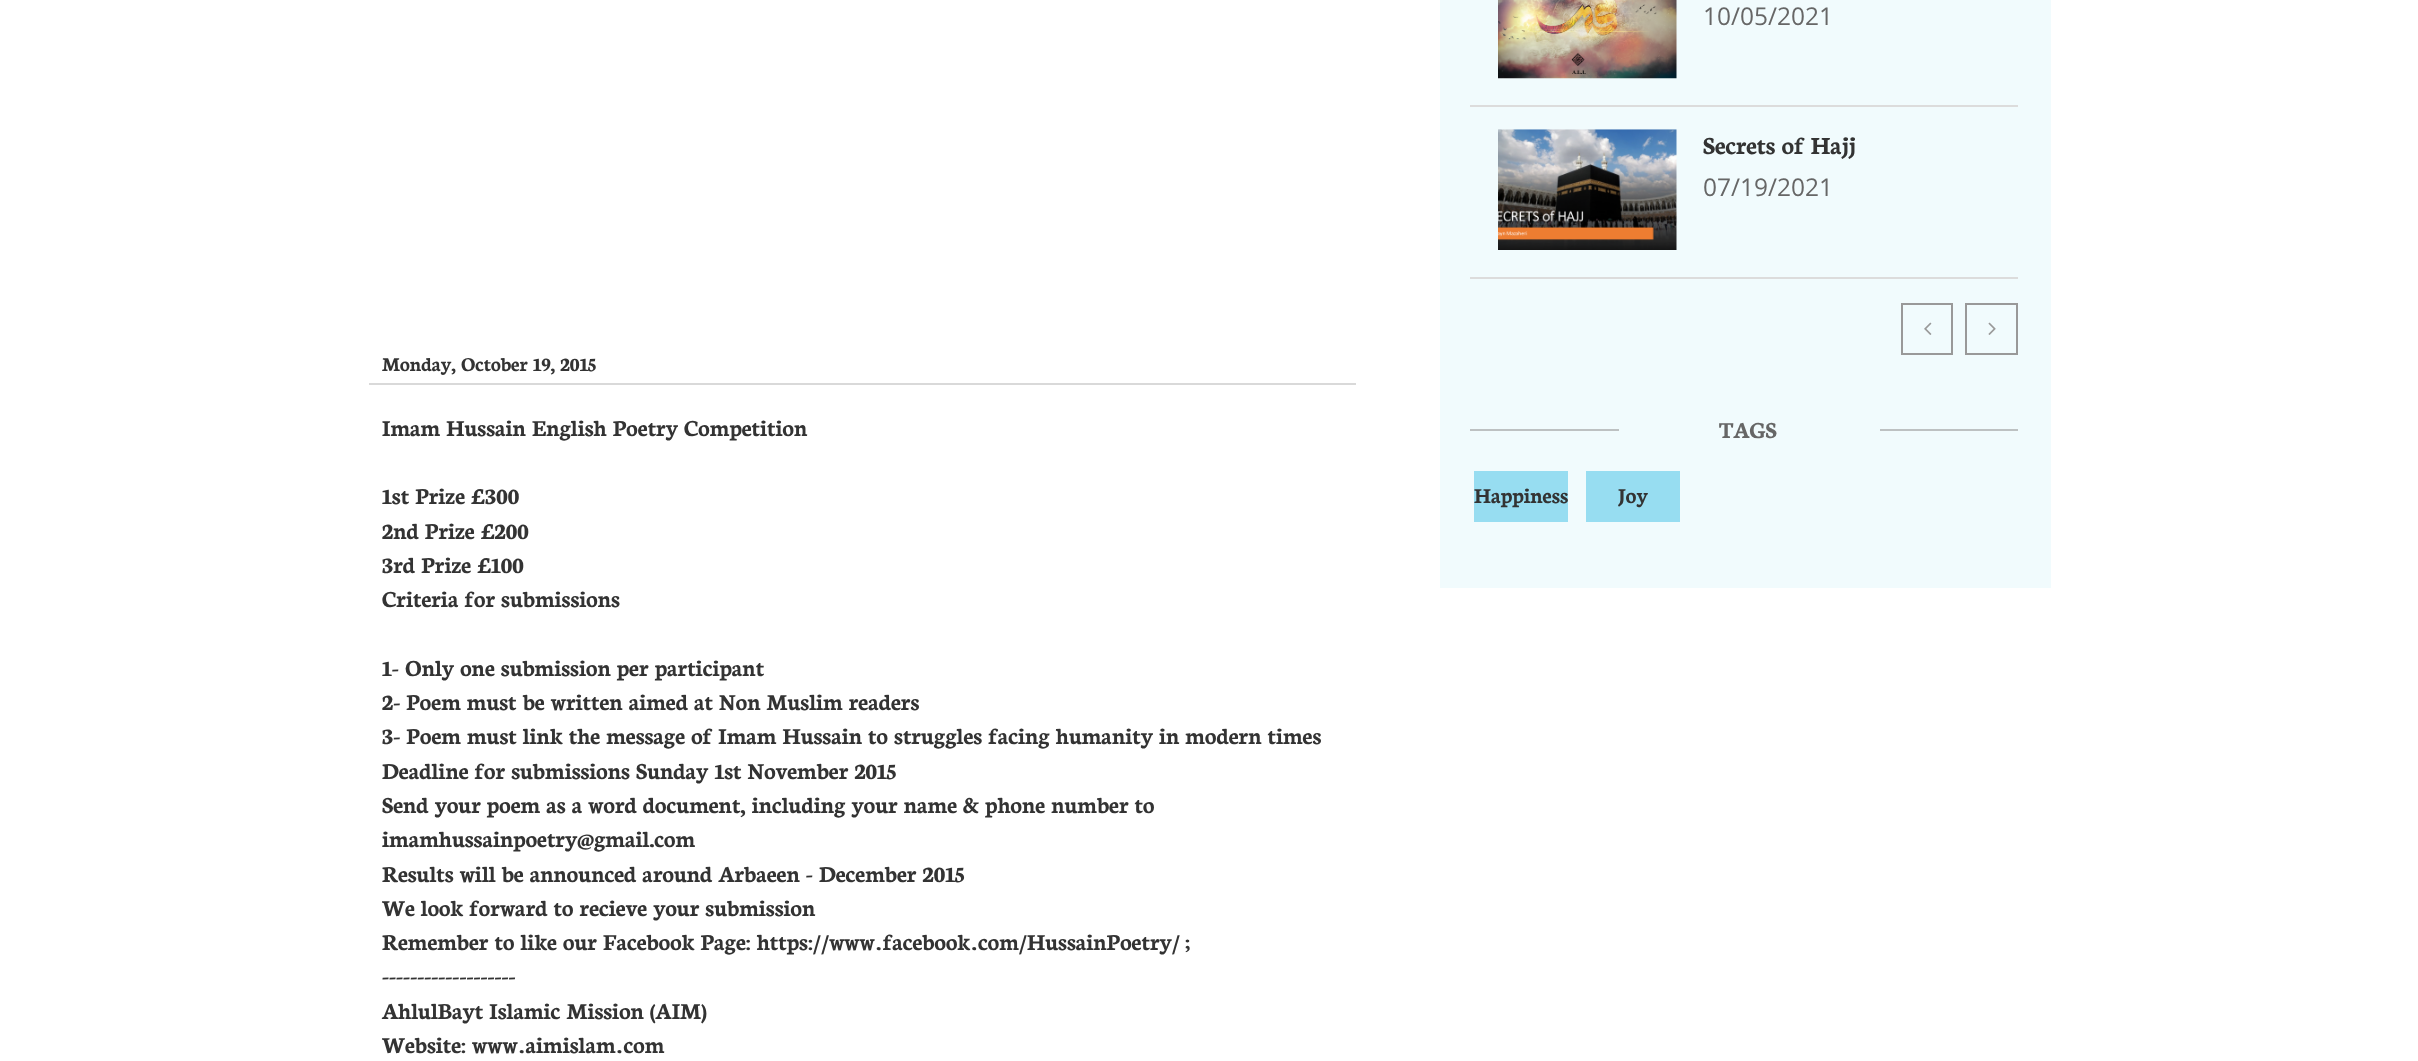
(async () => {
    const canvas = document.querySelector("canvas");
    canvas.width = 2418;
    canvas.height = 1061;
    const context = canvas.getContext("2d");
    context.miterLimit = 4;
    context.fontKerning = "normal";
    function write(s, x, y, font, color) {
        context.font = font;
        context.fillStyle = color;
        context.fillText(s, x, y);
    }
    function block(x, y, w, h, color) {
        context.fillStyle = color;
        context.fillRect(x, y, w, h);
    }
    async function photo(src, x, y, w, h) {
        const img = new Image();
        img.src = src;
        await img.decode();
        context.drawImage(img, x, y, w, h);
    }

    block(0, 0, 2418, 1061, "rgb(255, 255, 255)");
    write("Monday, October 19, 2015", 382, 371, "bold 21px Neuton", "rgb(51, 51, 51)");
    block(1440, 0, 611, 588, "rgb(241, 251, 253)");
    block(1470, 105, 548, 2, "rgb(220, 220, 220)");
    await photo("media/1.png", 1498, 0, 179, 79);
    write("10/05/2021", 1703, 25, "24.5px Open Sans", "rgb(102, 102, 102)");
    block(1470, 277, 548, 2, "rgb(220, 220, 220)");
    await photo("media/2.png", 1498, 129, 179, 121);
    write("Secrets of Hajj", 1703, 154, "bold 26.25px Neuton", "rgb(51, 51, 51)");
    write("07/19/2021", 1703, 196, "24.5px Open Sans", "rgb(102, 102, 102)");
    context.strokeStyle = "rgb(153, 153, 153)";
    context.lineWidth = 2;
    context.strokeRect(1902, 304, 50, 50);
    await photo("media/3.png", 1924, 322, 8, 13);
    context.strokeRect(1966, 304, 51, 50);
    await photo("media/4.png", 1988, 322, 8, 13);
    block(1470, 429, 149, 2, "rgb(189, 193, 194)");
    write("TAGS", 1719, 438, "bold 24.5px Neuton", "rgb(102, 102, 102)");
    block(1880, 429, 138, 2, "rgb(189, 193, 194)");
    block(1474, 471, 94, 51, "rgb(151, 221, 241)");
    write("Happiness", 1474, 503, "bold 22.75px Neuton", "rgb(51, 51, 51)");
    block(1586, 471, 94, 51, "rgb(151, 221, 241)");
    write("Joy", 1618, 503, "bold 22.75px Neuton", "rgb(51, 51, 51)");
    block(369, 383, 987, 2, "rgb(217, 217, 217)");
    write("Imam Hussain English Poetry Competition", 382, 436, "bold 24.5px Neuton", "rgb(51, 51, 51)");
    write("1st Prize £300", 382, 504, "bold 24.5px Neuton", "rgb(51, 51, 51)");
    write("2nd Prize £200", 382, 539, "bold 24.5px Neuton", "rgb(51, 51, 51)");
    write("3rd Prize £100", 382, 573, "bold 24.5px Neuton", "rgb(51, 51, 51)");
    write("Criteria for submissions", 382, 607, "bold 24.5px Neuton", "rgb(51, 51, 51)");
    write("1- Only one submission per participant", 382, 676, "bold 24.5px Neuton", "rgb(51, 51, 51)");
    write("2- Poem must be written aimed at Non Muslim readers", 382, 710, "bold 24.5px Neuton", "rgb(51, 51, 51)");
    write("3- Poem must link the message of Imam Hussain to struggles facing humanity in modern times", 382, 744, "bold 24.5px Neuton", "rgb(51, 51, 51)");
    write("Deadline for submissions Sunday 1st November 2015", 382, 779, "bold 24.5px Neuton", "rgb(51, 51, 51)");
    write("Send your poem as a word document, including your name & phone number to", 382, 813, "bold 24.5px Neuton", "rgb(51, 51, 51)");
    write("imamhussainpoetry@gmail.com", 382, 847, "bold 24.5px Neuton", "rgb(51, 51, 51)");
    write("Results will be announced around Arbaeen - December 2015", 382, 882, "bold 24.5px Neuton", "rgb(51, 51, 51)");
    write("We look forward to recieve your submission", 382, 916, "bold 24.5px Neuton", "rgb(51, 51, 51)");
    write("Remember to like our Facebook Page: https://www . facebook . com/HussainPoetry/", 382, 950, "bold 24.5px Neuton", "rgb(51, 51, 51)");
    write(";", 1185, 950, "bold 24.5px Neuton", "rgb(51, 51, 51)");
    write("-------------------", 382, 984, "bold 24.5px Neuton", "rgb(51, 51, 51)");
    write("AhlulBayt Islamic Mission (AIM)", 382, 1019, "bold 24.5px Neuton", "rgb(51, 51, 51)");
    write("Website: www . aimislam . com", 382, 1053, "bold 24.5px Neuton", "rgb(51, 51, 51)");
})();
